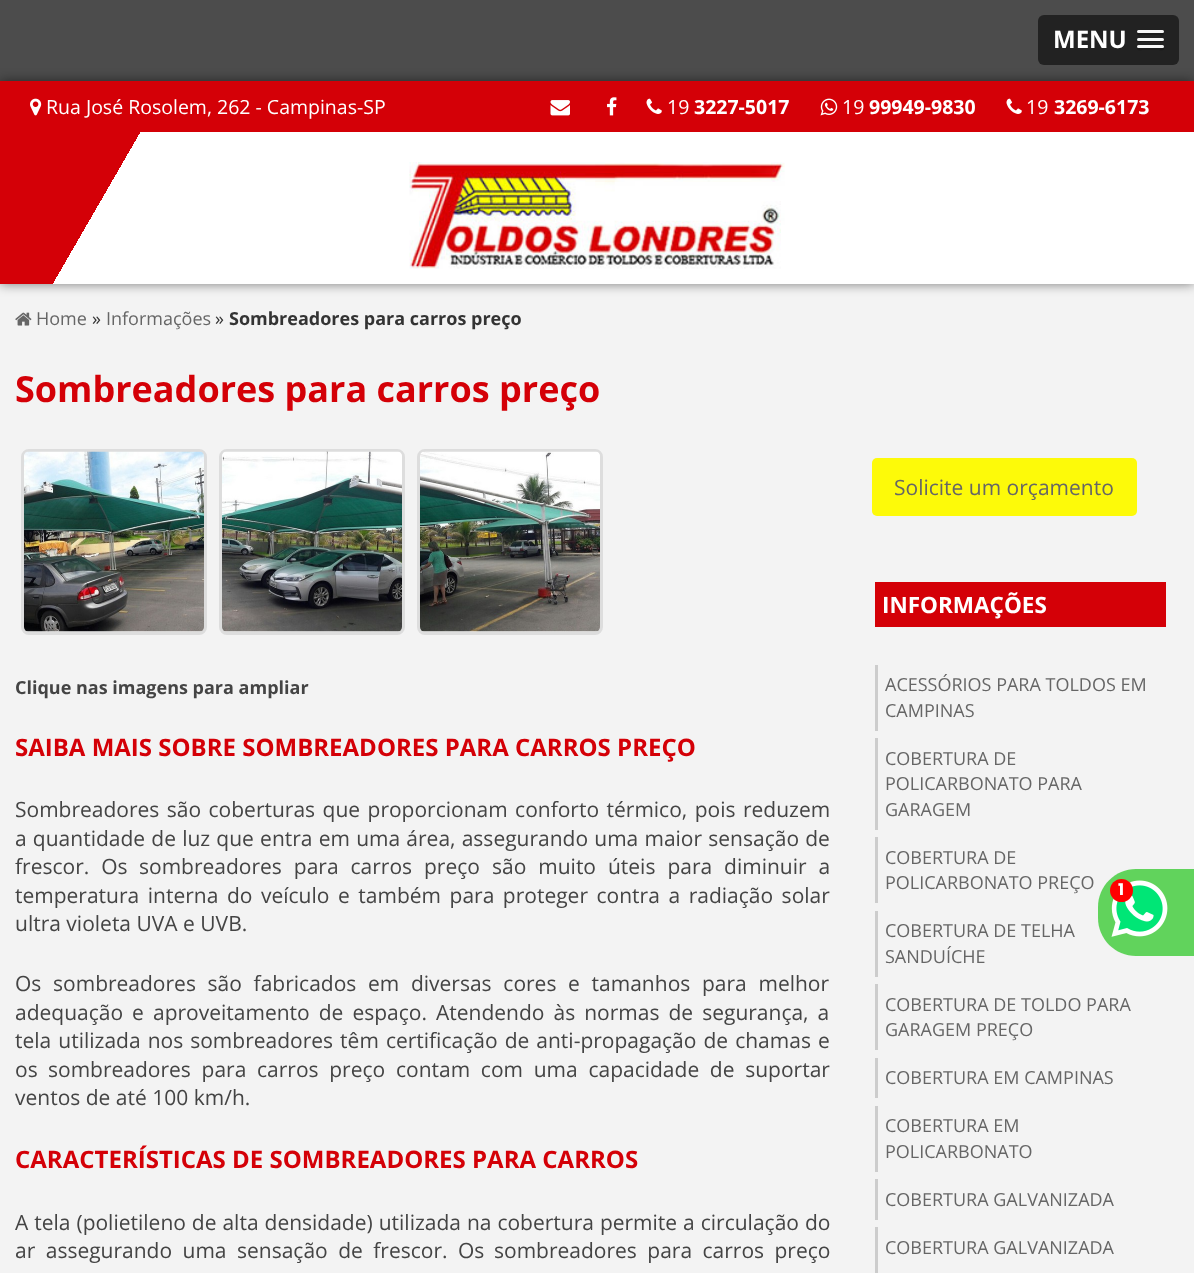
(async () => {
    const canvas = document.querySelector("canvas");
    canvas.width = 1194;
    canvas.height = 1273;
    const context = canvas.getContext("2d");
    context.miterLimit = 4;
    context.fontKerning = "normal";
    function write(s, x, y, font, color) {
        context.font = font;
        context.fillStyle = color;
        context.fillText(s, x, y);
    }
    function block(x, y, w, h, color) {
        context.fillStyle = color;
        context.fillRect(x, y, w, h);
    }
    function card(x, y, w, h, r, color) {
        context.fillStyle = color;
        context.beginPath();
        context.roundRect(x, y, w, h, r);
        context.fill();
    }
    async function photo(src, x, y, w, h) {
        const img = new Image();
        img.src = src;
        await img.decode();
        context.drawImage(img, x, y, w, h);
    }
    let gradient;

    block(0, 0, 1194, 1273, "rgb(243, 243, 243)");
    block(0, 0, 1194, 81, "rgb(76, 76, 76)");
    context.fillStyle = "rgba(0, 0, 0, 0.5)";
    context.filter = "blur(6px)";
    context.beginPath();
    context.rect(0, 81, 1194, 203);
    context.fill();
    context.filter = "none";
    card(1038, 15, 141, 50, 6, "rgb(34, 34, 34)");
    write("MENU", 1053, 48, "bold 24px Open Sans", "rgb(255, 255, 255)");
    context.fillStyle = "rgb(26, 26, 26)";
    context.beginPath();
    context.moveTo(1137.5, 32.5);
    context.lineTo(1137, 34);
    context.bezierCurveTo(1137.5, 36, 1142, 35, 1142.5, 35);
    context.lineTo(1158.5, 35);
    context.bezierCurveTo(1159, 35, 1163.5, 36, 1164, 34);
    context.lineTo(1163.5, 32.5);
    context.lineTo(1162.5, 33);
    context.lineTo(1138.5, 33);
    context.closePath();
    context.fill();
    card(1137, 30, 27, 3, 1.5, "rgb(245, 245, 245)");
    context.fillStyle = "rgb(26, 26, 26)";
    context.beginPath();
    context.moveTo(1137, 39.5);
    context.bezierCurveTo(1135.5, 43, 1142.5, 42, 1142.5, 42);
    context.lineTo(1158.5, 42);
    context.bezierCurveTo(1158.5, 42, 1165.5, 43, 1164, 39.5);
    context.bezierCurveTo(1163.5, 40, 1163, 40.5, 1162.5, 40.5);
    context.lineTo(1138.5, 40.5);
    context.bezierCurveTo(1138, 40.5, 1137.5, 40, 1137, 39.5);
    context.closePath();
    context.fill();
    card(1137, 38, 27, 3, 1.5, "rgb(245, 245, 245)");
    context.fillStyle = "rgb(26, 26, 26)";
    context.beginPath();
    context.moveTo(1137.5, 47.5);
    context.lineTo(1137, 49);
    context.bezierCurveTo(1137.5, 51, 1142, 50, 1142.5, 50);
    context.lineTo(1158.5, 50);
    context.bezierCurveTo(1159, 50, 1163.5, 51, 1164, 49);
    context.lineTo(1163.5, 47.5);
    context.lineTo(1162.5, 48);
    context.lineTo(1138.5, 48);
    context.closePath();
    context.fill();
    card(1137, 45, 27, 3, 1.5, "rgb(245, 245, 245)");
    gradient = context.createLinearGradient(1089, 466, 105, -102);
    gradient.addColorStop(0, "rgb(255, 255, 255)");
    gradient.addColorStop(0.87, "rgb(255, 255, 255)");
    gradient.addColorStop(0.87, "rgb(214, 0, 2)");
    gradient.addColorStop(0.87, "rgb(212, 0, 7)");
    context.fillStyle = gradient;
    context.fillRect(0, 132, 1194, 152);
    block(0, 81, 1194, 51, "rgb(212, 0, 7)");
    await photo("media/1.png", 30, 98, 12, 18);
    write("Rua José Rosolem, 262 - Campinas-SP", 46, 114, "19.5px Open Sans", "rgb(255, 255, 255)");
    await photo("media/2.png", 550, 100, 20, 16);
    await photo("media/3.png", 607, 97, 10, 19);
    await photo("media/4.png", 646, 98, 16, 16);
    write("19", 667, 114, "19.5px Open Sans", "rgb(255, 255, 255)");
    write("3227-5017", 694, 114, "bold 19.5px Open Sans", "rgb(255, 255, 255)");
    await photo("media/5.png", 820, 98, 18, 18);
    write("19", 842, 114, "19.5px Open Sans", "rgb(255, 255, 255)");
    write("99949-9830", 869, 114, "bold 19.5px Open Sans", "rgb(255, 255, 255)");
    await photo("media/4.png", 1006, 98, 16, 16);
    write("19", 1026, 114, "19.5px Open Sans", "rgb(255, 255, 255)");
    write("3269-6173", 1054, 114, "bold 19.5px Open Sans", "rgb(255, 255, 255)");
    await photo("media/6.png", 409, 162, 376, 107);
    await photo("media/7.png", 15, 312, 17, 14);
    write("Home", 36, 325, "18px Open Sans", "rgb(102, 102, 102)");
    write("»", 92, 325, "18px Open Sans", "rgb(51, 51, 51)");
    write("Informações", 106, 325, "18px Open Sans", "rgb(102, 102, 102)");
    write("»", 215, 325, "18px Open Sans", "rgb(51, 51, 51)");
    write("Sombreadores para carros preço", 229, 325, "bold 18px Open Sans", "rgb(51, 51, 51)");
    write("Sombreadores para carros preço", 15, 402, "bold 36px Open Sans", "rgb(212, 0, 7)");
    card(872, 458, 265, 58, 5, "rgb(253, 250, 9)");
    write("Solicite um orçamento", 894, 495, "21px Open Sans", "rgb(102, 102, 102)");
    context.beginPath();
    context.roundRect(22.5, 450.5, 183, 183, 6.5);
    context.strokeStyle = "rgb(221, 221, 221)";
    context.lineWidth = 3;
    context.stroke();
    await photo("media/8.png", 24, 451, 180, 181);
    context.beginPath();
    context.roundRect(220.5, 450.5, 183, 183, 6.5);
    context.stroke();
    await photo("media/9.png", 222, 451, 180, 181);
    context.beginPath();
    context.roundRect(418.5, 450.5, 183, 183, 6.5);
    context.stroke();
    await photo("media/10.png", 420, 451, 180, 181);
    write("Clique nas imagens para ampliar", 15, 694, "bold 18px Open Sans", "rgb(68, 68, 68)");
    write("SAIBA MAIS SOBRE SOMBREADORES PARA CARROS PREÇO", 15, 756, "bold 24px Open Sans", "rgb(212, 0, 7)");
    context.wordSpacing = "2px";
    write("Sombreadores são coberturas que proporcionam conforto térmico, pois reduzem", 15, 817, "21px Open Sans", "rgb(68, 68, 68)");
    context.wordSpacing = "0.75px";
    write("a quantidade de luz que entra em uma área, assegurando uma maior sensação de", 15, 846, "21px Open Sans", "rgb(68, 68, 68)");
    context.wordSpacing = "6.5px";
    write("frescor. Os", 15, 874, "21px Open Sans", "rgb(68, 68, 68)");
    write("sombreadores para carros preço", 139, 874, "21px Open Sans", "rgb(68, 68, 68)");
    write("são muito úteis para diminuir a", 492, 874, "21px Open Sans", "rgb(68, 68, 68)");
    context.wordSpacing = "3.1px";
    write("temperatura interna do veículo e também para proteger contra a radiação solar", 15, 903, "21px Open Sans", "rgb(68, 68, 68)");
    context.wordSpacing = "0px";
    write("ultra violeta UVA e UVB.", 15, 931, "21px Open Sans", "rgb(68, 68, 68)");
    context.wordSpacing = "6.25px";
    write("Os sombreadores são fabricados em diversas cores e tamanhos para melhor", 15, 991, "21px Open Sans", "rgb(68, 68, 68)");
    context.wordSpacing = "3.6px";
    write("adequação e aproveitamento de espaço. Atendendo às normas de segurança, a", 15, 1020, "21px Open Sans", "rgb(68, 68, 68)");
    context.wordSpacing = "1.6px";
    write("tela utilizada nos sombreadores têm certificação de anti-propagação de chamas e", 15, 1048, "21px Open Sans", "rgb(68, 68, 68)");
    context.wordSpacing = "0px";
    write("os", 15, 1077, "21px Open Sans", "rgb(68, 68, 68)");
    context.wordSpacing = "5.25px";
    write("sombreadores para carros preço", 48, 1077, "21px Open Sans", "rgb(68, 68, 68)");
    write("contam com uma capacidade de suportar", 396, 1077, "21px Open Sans", "rgb(68, 68, 68)");
    context.wordSpacing = "0px";
    write("ventos de até 100 km/h.", 15, 1105, "21px Open Sans", "rgb(68, 68, 68)");
    write("CARACTERÍSTICAS DE SOMBREADORES PARA CARROS", 15, 1168, "bold 24px Open Sans", "rgb(212, 0, 7)");
    context.wordSpacing = "0.5px";
    write("A tela (polietileno de alta densidade) utilizada na cobertura permite a circulação do", 15, 1230, "21px Open Sans", "rgb(68, 68, 68)");
    context.wordSpacing = "5px";
    write("ar assegurando uma sensação de frescor. Os", 15, 1258, "21px Open Sans", "rgb(68, 68, 68)");
    write("sombreadores para carros preço", 494, 1258, "21px Open Sans", "rgb(68, 68, 68)");
    block(875, 582, 291, 45, "rgb(212, 0, 7)");
    context.wordSpacing = "0px";
    write("INFORMAÇÕES", 882, 613, "bold 22.5px Open Sans", "rgb(255, 255, 255)");
    block(875, 665, 3, 66, "rgb(204, 204, 204)");
    write("ACESSÓRIOS PARA TOLDOS EM", 885, 691, "18px Open Sans", "rgb(102, 102, 102)");
    write("CAMPINAS", 885, 717, "18px Open Sans", "rgb(102, 102, 102)");
    block(875, 738, 3, 92, "rgb(204, 204, 204)");
    write("COBERTURA DE", 885, 765, "18px Open Sans", "rgb(102, 102, 102)");
    write("POLICARBONATO PARA", 885, 790, "18px Open Sans", "rgb(102, 102, 102)");
    write("GARAGEM", 885, 816, "18px Open Sans", "rgb(102, 102, 102)");
    block(875, 837, 3, 66, "rgb(204, 204, 204)");
    write("COBERTURA DE", 885, 864, "18px Open Sans", "rgb(102, 102, 102)");
    write("POLICARBONATO PREÇO", 885, 889, "18px Open Sans", "rgb(102, 102, 102)");
    block(875, 911, 3, 66, "rgb(204, 204, 204)");
    write("COBERTURA DE TELHA", 885, 937, "18px Open Sans", "rgb(102, 102, 102)");
    write("SANDUÍCHE", 885, 963, "18px Open Sans", "rgb(102, 102, 102)");
    block(875, 984, 3, 66, "rgb(204, 204, 204)");
    write("COBERTURA DE TOLDO PARA", 885, 1011, "18px Open Sans", "rgb(102, 102, 102)");
    write("GARAGEM PREÇO", 885, 1036, "18px Open Sans", "rgb(102, 102, 102)");
    block(875, 1058, 3, 40, "rgb(204, 204, 204)");
    write("COBERTURA EM CAMPINAS", 885, 1084, "18px Open Sans", "rgb(102, 102, 102)");
    block(875, 1106, 3, 66, "rgb(204, 204, 204)");
    write("COBERTURA EM", 885, 1132, "18px Open Sans", "rgb(102, 102, 102)");
    write("POLICARBONATO", 885, 1158, "18px Open Sans", "rgb(102, 102, 102)");
    block(875, 1179, 3, 41, "rgb(204, 204, 204)");
    write("COBERTURA GALVANIZADA", 885, 1206, "18px Open Sans", "rgb(102, 102, 102)");
    block(875, 1227, 3, 46, "rgb(204, 204, 204)");
    write("COBERTURA GALVANIZADA", 885, 1254, "18px Open Sans", "rgb(102, 102, 102)");
    context.fillStyle = "rgba(82, 208, 77, 0.91)";
    context.beginPath();
    context.moveTo(1136, 869);
    context.lineTo(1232, 869);
    context.lineTo(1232, 956);
    context.lineTo(1136, 956);
    context.bezierCurveTo(1115, 956, 1098, 939, 1098, 918);
    context.lineTo(1098, 907);
    context.bezierCurveTo(1098, 886, 1115, 869, 1136, 869);
    context.closePath();
    context.fill();
    await photo("media/11.png", 1111, 880, 57, 57);
    context.fillStyle = "rgb(255, 0, 0)";
    context.beginPath();
    context.arc(1121.5, 890.5, 11.5, 0, Math.PI * 2);
    context.fill();
    write("1", 1118, 895, "bold 16px Poppins", "rgb(255, 255, 255)");
})();
